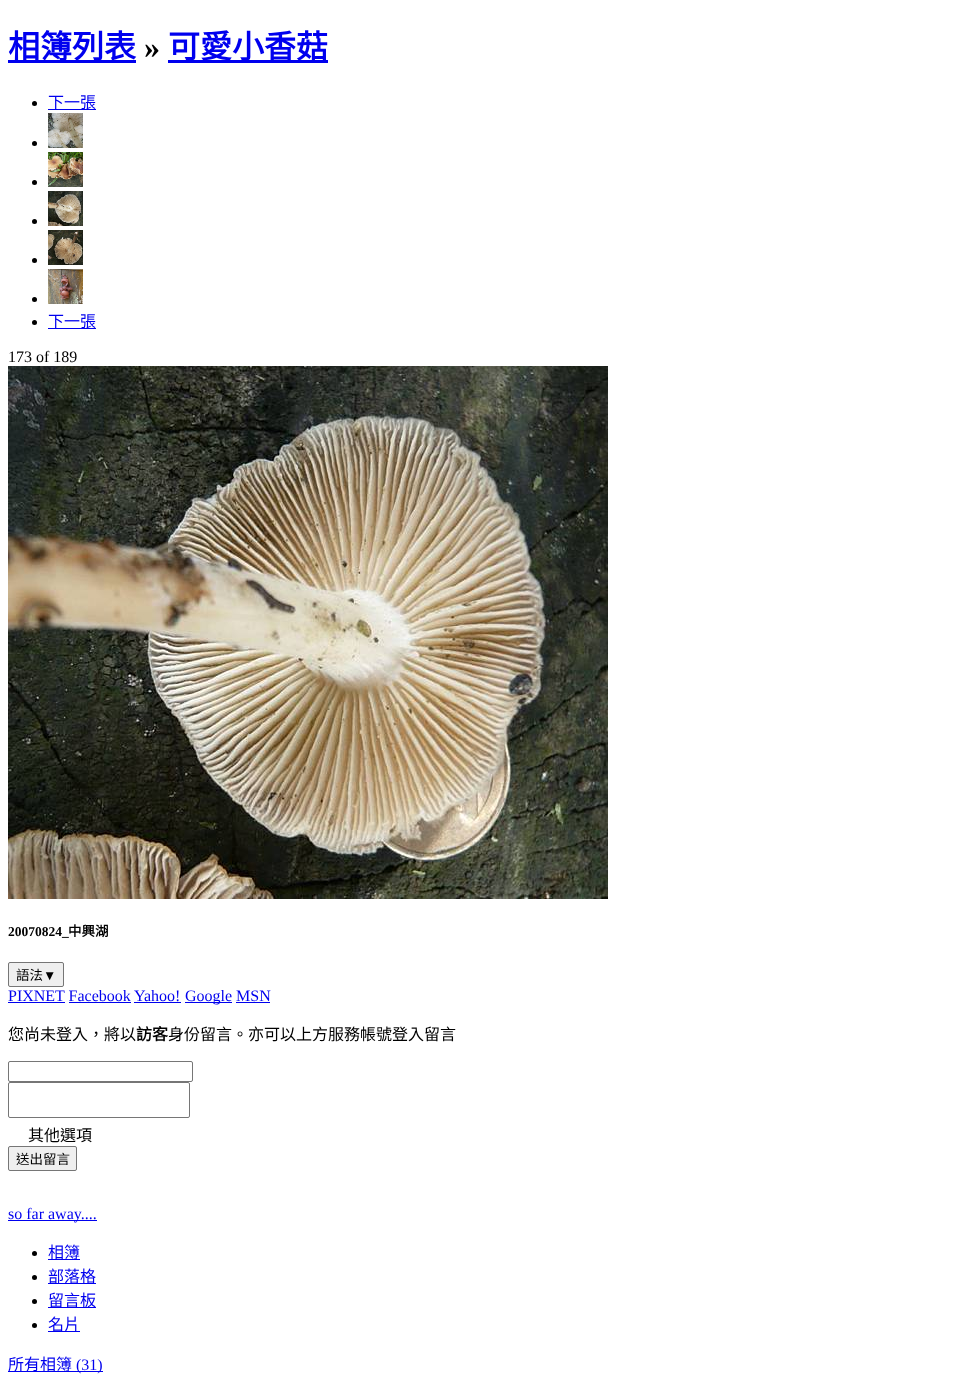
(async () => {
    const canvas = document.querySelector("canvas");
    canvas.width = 963;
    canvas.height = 1378;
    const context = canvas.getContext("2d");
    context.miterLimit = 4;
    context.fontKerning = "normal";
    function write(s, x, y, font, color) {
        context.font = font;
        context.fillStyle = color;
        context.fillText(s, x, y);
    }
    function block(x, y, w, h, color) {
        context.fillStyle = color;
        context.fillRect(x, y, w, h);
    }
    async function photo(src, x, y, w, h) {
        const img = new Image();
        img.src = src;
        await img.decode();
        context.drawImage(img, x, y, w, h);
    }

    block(0, 0, 963, 1378, "rgb(255, 255, 255)");
    block(8, 60, 128, 3, "rgb(0, 0, 238)");
    write("相簿列表", 8, 58, "bold 32px Noto Sans CJK TC", "rgb(0, 0, 238)");
    write("»", 144, 58, "bold 32px Liberation Serif", "rgb(0, 0, 0)");
    block(168, 60, 160, 3, "rgb(0, 0, 238)");
    write("可愛小香菇", 168, 58, "bold 32px Noto Sans CJK TC", "rgb(0, 0, 238)");
    context.fillStyle = "rgb(0, 0, 0)";
    context.beginPath();
    context.arc(34.5, 103.5, 2.5, 0, Math.PI * 2);
    context.fill();
    block(48, 109, 48, 1, "rgb(0, 0, 238)");
    write("下一張", 48, 108, "16px Noto Sans CJK TC", "rgb(0, 0, 238)");
    context.fillStyle = "rgb(0, 0, 0)";
    context.beginPath();
    context.arc(34.5, 143.5, 2.5, 0, Math.PI * 2);
    context.fill();
    await photo("media/1.png", 48, 113, 35, 35);
    context.beginPath();
    context.arc(34.5, 182.5, 2.5, 0, Math.PI * 2);
    context.fill();
    await photo("media/2.png", 48, 152, 35, 35);
    context.beginPath();
    context.arc(34.5, 221.5, 2.5, 0, Math.PI * 2);
    context.fill();
    await photo("media/3.png", 48, 191, 35, 35);
    context.beginPath();
    context.arc(34.5, 260.5, 2.5, 0, Math.PI * 2);
    context.fill();
    await photo("media/4.png", 48, 230, 35, 35);
    context.beginPath();
    context.arc(34.5, 299.5, 2.5, 0, Math.PI * 2);
    context.fill();
    await photo("media/5.png", 48, 269, 35, 35);
    context.beginPath();
    context.arc(34.5, 322.5, 2.5, 0, Math.PI * 2);
    context.fill();
    block(48, 328, 48, 1, "rgb(0, 0, 238)");
    write("下一張", 48, 327, "16px Noto Sans CJK TC", "rgb(0, 0, 238)");
    write("173 of 189", 8, 362, "16px Liberation Serif", "rgb(0, 0, 0)");
    await photo("media/6.png", 8, 366, 600, 533);
    write("20070824_", 8, 936, "bold 13.5px Liberation Serif", "rgb(0, 0, 0)");
    write("中興湖", 68, 936, "bold 13.5px Noto Sans CJK TC", "rgb(0, 0, 0)");
    context.fillStyle = "rgb(239, 239, 239)";
    context.beginPath();
    context.roundRect(8.5, 962.5, 55, 24, 1.5);
    context.fill();
    context.strokeStyle = "rgb(118, 118, 118)";
    context.stroke();
    write("語法", 16, 980, "13.5px Noto Sans CJK TC", "rgb(0, 0, 0)");
    write("▼", 43, 980, "13.5px Liberation Sans", "rgb(0, 0, 0)");
    write("PIXNET Facebook", 8, 1001, "16px Liberation Serif", "rgb(0, 0, 238)");
    block(8, 1002, 57, 1, "rgb(0, 0, 238)");
    write("Yahoo!", 134, 1001, "16px Liberation Serif", "rgb(0, 0, 238)");
    block(134, 1002, 47, 1, "rgb(0, 0, 238)");
    block(185, 1002, 47, 1, "rgb(0, 0, 238)");
    write("Google MSN", 185, 1001, "16px Liberation Serif", "rgb(0, 0, 238)");
    block(69, 1002, 62, 1, "rgb(0, 0, 238)");
    block(236, 1002, 34, 1, "rgb(0, 0, 238)");
    write("您尚未登入，將以", 8, 1040, "16px Noto Sans CJK TC", "rgb(0, 0, 0)");
    write("訪客", 136, 1040, "bold 16px Noto Sans CJK TC", "rgb(0, 0, 0)");
    write("身份留言。亦可以上方服務帳號登入留言", 168, 1040, "16px Noto Sans CJK TC", "rgb(0, 0, 0)");
    context.beginPath();
    context.roundRect(8.5, 1061.5, 184, 20, 1.5);
    context.stroke();
    context.beginPath();
    context.roundRect(8.5, 1082.5, 181, 35, 1.5);
    context.stroke();
    write("其他選項", 28, 1141, "16px Noto Sans CJK TC", "rgb(0, 0, 0)");
    context.fillStyle = "rgb(239, 239, 239)";
    context.beginPath();
    context.roundRect(8.5, 1146.5, 68, 24, 1.5);
    context.fill();
    context.stroke();
    write("送出留言", 16, 1164, "13.5px Noto Sans CJK TC", "rgb(0, 0, 0)");
    block(8, 1220, 89, 1, "rgb(0, 0, 238)");
    write("so far away....", 8, 1219, "16px Liberation Serif", "rgb(0, 0, 238)");
    context.fillStyle = "rgb(0, 0, 0)";
    context.beginPath();
    context.arc(34.5, 1253.5, 2.5, 0, Math.PI * 2);
    context.fill();
    block(48, 1259, 32, 1, "rgb(0, 0, 238)");
    write("相簿", 48, 1258, "16px Noto Sans CJK TC", "rgb(0, 0, 238)");
    context.fillStyle = "rgb(0, 0, 0)";
    context.beginPath();
    context.arc(34.5, 1277.5, 2.5, 0, Math.PI * 2);
    context.fill();
    block(48, 1283, 48, 1, "rgb(0, 0, 238)");
    write("部落格", 48, 1282, "16px Noto Sans CJK TC", "rgb(0, 0, 238)");
    context.fillStyle = "rgb(0, 0, 0)";
    context.beginPath();
    context.arc(34.5, 1301.5, 2.5, 0, Math.PI * 2);
    context.fill();
    block(48, 1307, 48, 1, "rgb(0, 0, 238)");
    write("留言板", 48, 1306, "16px Noto Sans CJK TC", "rgb(0, 0, 238)");
    context.fillStyle = "rgb(0, 0, 0)";
    context.beginPath();
    context.arc(34.5, 1325.5, 2.5, 0, Math.PI * 2);
    context.fill();
    block(48, 1331, 32, 1, "rgb(0, 0, 238)");
    write("名片", 48, 1330, "16px Noto Sans CJK TC", "rgb(0, 0, 238)");
    block(8, 1371, 95, 1, "rgb(0, 0, 238)");
    write("所有相簿", 8, 1370, "16px Noto Sans CJK TC", "rgb(0, 0, 238)");
    write("(31)", 76, 1370, "16px Liberation Serif", "rgb(0, 0, 238)");
})();
